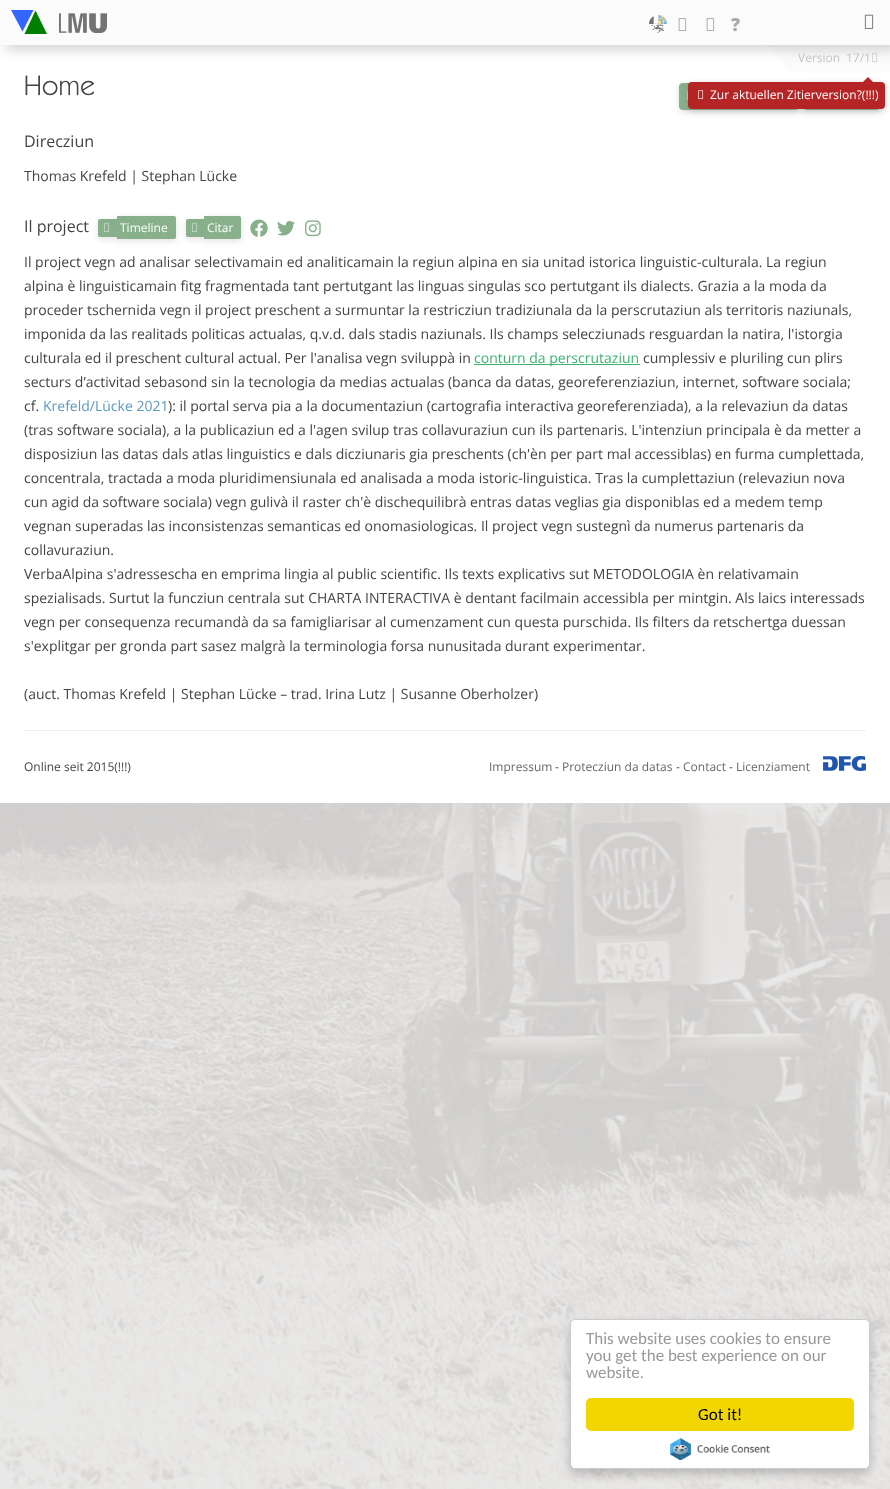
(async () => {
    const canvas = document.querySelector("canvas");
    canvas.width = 890;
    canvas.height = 1489;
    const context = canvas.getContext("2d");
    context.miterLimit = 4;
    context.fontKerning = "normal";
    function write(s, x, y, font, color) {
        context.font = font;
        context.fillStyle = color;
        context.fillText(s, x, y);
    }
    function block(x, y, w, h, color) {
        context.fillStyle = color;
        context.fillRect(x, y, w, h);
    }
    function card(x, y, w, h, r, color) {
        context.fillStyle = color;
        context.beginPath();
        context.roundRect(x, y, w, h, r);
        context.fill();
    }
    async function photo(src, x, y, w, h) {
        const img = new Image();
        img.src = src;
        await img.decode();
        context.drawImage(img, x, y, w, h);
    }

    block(0, 0, 890, 1489, "rgb(230, 230, 230)");
    block(0, 45, 890, 758, "rgb(255, 255, 255)");
    await photo("media/3.png", 766, 45, 32, 27);
    block(798, 45, 92, 27, "rgb(251, 251, 251)");
    await photo("media/4.png", 872, 53, 5, 9);
    context.fillStyle = "rgba(0, 0, 0, 0.15)";
    context.filter = "blur(6px)";
    context.beginPath();
    context.rect(6, 6, 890, 45);
    context.fill();
    context.filter = "none";
    block(0, 0, 890, 45, "rgb(251, 251, 251)");
    await photo("media/1.png", 649, 15, 18, 18);
    await photo("media/2.png", 678, 18, 9, 13);
    await photo("media/2.png", 706, 18, 9, 13);
    write("?", 731, 31, "900 18px Noto Sans", "rgb(169, 169, 169)");
    write("Version", 798, 62, "12px Open Sans", "rgb(197, 197, 197)");
    write("17/1", 846, 62, "12px Open Sans", "rgb(197, 197, 197)");
    context.fillStyle = "rgb(0, 128, 0)";
    context.beginPath();
    context.moveTo(24.5, 34);
    context.lineTo(35.5, 10.5);
    context.lineTo(47, 34);
    context.closePath();
    context.fill("evenodd");
    context.fillStyle = "rgb(51, 102, 255)";
    context.beginPath();
    context.moveTo(33.5, 10);
    context.lineTo(22.5, 31.5);
    context.lineTo(11, 10);
    context.closePath();
    context.fill("evenodd");
    await photo("media/5.png", 59, 13, 48, 20);
    await photo("media/6.png", 864, 14, 10, 15);
    context.fillStyle = "rgba(154, 154, 154, 0.3)";
    context.filter = "blur(3px)";
    context.beginPath();
    context.roundRect(679, 85, 120, 27, 4);
    context.fill();
    context.filter = "none";
    card(679, 83, 120, 27, 4, "rgb(135, 176, 139)");
    await photo("media/8.png", 687, 91, 1, 9);
    context.fillStyle = "rgba(100, 100, 100, 0.2)";
    context.filter = "blur(3px)";
    context.beginPath();
    context.roundRect(803, 85, 77, 27, 4);
    context.fill();
    context.filter = "none";
    card(803, 83, 77, 27, 4, "rgb(135, 176, 139)");
    context.fillStyle = "rgba(100, 100, 100, 0.3)";
    context.filter = "blur(3px)";
    context.beginPath();
    context.roundRect(688, 84, 197, 27, 4);
    context.fill();
    context.filter = "none";
    card(688, 82, 197, 27, 4, "rgb(181, 37, 37)");
    context.beginPath();
    context.moveTo(873, 82);
    context.lineTo(863, 82);
    context.lineTo(868, 77);
    context.closePath();
    context.fill();
    await photo("media/7.png", 698, 90, 6, 9);
    write("Zur aktuellen Zitierversion?(!!!)", 710, 99, "12px Open Sans", "rgb(255, 255, 255)");
    context.letterSpacing = "0.5px";
    write("Home", 24, 95, "28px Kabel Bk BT", "rgb(68, 68, 68)");
    context.letterSpacing = "0px";
    write("Direcziun", 24, 147, "16px Open Sans", "rgb(68, 68, 68)");
    write("Thomas Krefeld | Stephan Lücke", 24, 181, "14px Open Sans", "rgb(68, 68, 68)");
    write("Il project", 24, 232, "16px Open Sans", "rgb(68, 68, 68)");
    context.fillStyle = "rgba(154, 154, 154, 0.3)";
    context.filter = "blur(3px)";
    context.beginPath();
    context.roundRect(98, 221, 19, 18, 2);
    context.fill();
    context.filter = "none";
    context.fillStyle = "rgb(135, 176, 139)";
    context.beginPath();
    context.roundRect(98, 219, 19, 18, [2, 0, 0, 2]);
    context.fill();
    context.fillStyle = "rgba(154, 154, 154, 0.3)";
    context.filter = "blur(3px)";
    context.beginPath();
    context.roundRect(117, 218, 59, 23, 2);
    context.fill();
    context.filter = "none";
    context.fillStyle = "rgb(135, 176, 139)";
    context.beginPath();
    context.roundRect(117, 216, 59, 23, [0, 2, 2, 0]);
    context.fill();
    await photo("media/9.png", 104, 223, 6, 9);
    write("Timeline", 120, 232, "12px Open Sans", "rgb(255, 255, 255)");
    context.fillStyle = "rgba(154, 154, 154, 0.3)";
    context.filter = "blur(3px)";
    context.beginPath();
    context.roundRect(186, 221, 18, 18, 2);
    context.fill();
    context.filter = "none";
    context.fillStyle = "rgb(135, 176, 139)";
    context.beginPath();
    context.roundRect(186, 219, 18, 18, [2, 0, 0, 2]);
    context.fill();
    context.fillStyle = "rgba(154, 154, 154, 0.3)";
    context.filter = "blur(3px)";
    context.beginPath();
    context.roundRect(204, 218, 37, 23, 2);
    context.fill();
    context.filter = "none";
    context.fillStyle = "rgb(135, 176, 139)";
    context.beginPath();
    context.roundRect(204, 216, 37, 23, [0, 2, 2, 0]);
    context.fill();
    await photo("media/10.png", 192, 223, 6, 9);
    write("Citar", 207, 232, "12px Open Sans", "rgb(255, 255, 255)");
    await photo("media/11.png", 250, 219, 18, 18);
    await photo("media/12.png", 277, 221, 18, 15);
    await photo("media/13.png", 305, 220, 16, 17);
    write("Il project vegn ad analisar selectivamain ed analiticamain la regiun alpina en sia unitad istorica linguistic-culturala. La regiun", 24, 267, "14px Open Sans", "rgb(68, 68, 68)");
    write("alpina è linguisticamain fitg fragmentada tant pertutgant las linguas singulas sco pertutgant ils dialects. Grazia a la moda da", 24, 291, "14px Open Sans", "rgb(68, 68, 68)");
    write("proceder tschernida vegn il project preschent a surmuntar la restricziun tradiziunala da la perscrutaziun als territoris naziunals,", 24, 315, "14px Open Sans", "rgb(68, 68, 68)");
    write("imponida da las realitads politicas actualas, q.v.d. dals stadis naziunals. Ils champs selecziunads resguardan la natira, l'istorgia", 24, 339, "14px Open Sans", "rgb(68, 68, 68)");
    write("culturala ed il preschent cultural actual. Per l'analisa vegn sviluppà in", 24, 363, "14px Open Sans", "rgb(68, 68, 68)");
    block(474, 364, 166, 1, "rgb(60, 179, 113)");
    write("conturn da perscrutaziun", 474, 363, "14px Open Sans", "rgb(60, 179, 113)");
    write("cumplessiv e pluriling cun plirs", 643, 363, "14px Open Sans", "rgb(68, 68, 68)");
    write("secturs d’activitad sebasond sin la tecnologia da medias actualas (banca da datas, georeferenziaziun, internet, software sociala;", 24, 387, "14px Open Sans", "rgb(68, 68, 68)");
    write("cf.", 24, 411, "14px Open Sans", "rgb(68, 68, 68)");
    write("Krefeld/Lücke 2021", 43, 411, "14px Open Sans", "rgb(94, 153, 189)");
    write("): il portal serva pia a la documentaziun (cartografia interactiva georeferenziada), a la relevaziun da datas", 168, 411, "14px Open Sans", "rgb(68, 68, 68)");
    write("(tras software sociala), a la publicaziun ed a l'agen svilup tras collavuraziun cun ils partenaris. L'intenziun principala è da metter a", 24, 435, "14px Open Sans", "rgb(68, 68, 68)");
    write("disposiziun las datas dals atlas linguistics e dals dicziunaris gia preschents (ch'èn per part mal accessiblas) en furma cumplettada,", 24, 459, "14px Open Sans", "rgb(68, 68, 68)");
    write("concentrala, tractada a moda pluridimensiunala ed analisada a moda istoric-linguistica. Tras la cumplettaziun (relevaziun nova", 24, 483, "14px Open Sans", "rgb(68, 68, 68)");
    write("cun agid da software sociala) vegn gulivà il raster ch'è dischequilibrà entras datas veglias gia disponiblas ed a medem temp", 24, 507, "14px Open Sans", "rgb(68, 68, 68)");
    write("vegnan superadas las inconsistenzas semanticas ed onomasiologicas. Il project vegn sustegnì da numerus partenaris da", 24, 531, "14px Open Sans", "rgb(68, 68, 68)");
    write("collavuraziun.", 24, 555, "14px Open Sans", "rgb(68, 68, 68)");
    write("VerbaAlpina s'adressescha en emprima lingia al public scientific. Ils texts explicativs sut METODOLOGIA èn relativamain", 24, 579, "14px Open Sans", "rgb(68, 68, 68)");
    write("spezialisads. Surtut la funcziun centrala sut CHARTA INTERACTIVA è dentant facilmain accessibla per mintgin. Als laics interessads", 24, 603, "14px Open Sans", "rgb(68, 68, 68)");
    write("vegn per consequenza recumandà da sa famigliarisar al cumenzament cun questa purschida. Ils filters da retschertga duessan", 24, 627, "14px Open Sans", "rgb(68, 68, 68)");
    write("s'explitgar per gronda part sasez malgrà la terminologia forsa nunusitada durant experimentar.", 24, 651, "14px Open Sans", "rgb(68, 68, 68)");
    write("(auct. Thomas Krefeld | Stephan Lücke – trad. Irina Lutz | Susanne Oberholzer)", 24, 699, "14px Open Sans", "rgb(68, 68, 68)");
    block(24, 730, 842, 1, "rgb(237, 237, 237)");
    write("Online seit 2015(!!!)", 24, 771, "12px Open Sans", "rgb(68, 68, 68)");
    write("Impressum", 489, 771, "12px Open Sans", "rgb(104, 104, 104)");
    write("-", 555, 771, "12px Open Sans", "rgb(68, 68, 68)");
    write("Protecziun da datas", 562, 771, "12px Open Sans", "rgb(104, 104, 104)");
    write("-", 676, 771, "12px Open Sans", "rgb(68, 68, 68)");
    write("Contact", 683, 771, "12px Open Sans", "rgb(104, 104, 104)");
    write("-", 729, 771, "12px Open Sans", "rgb(68, 68, 68)");
    write("Licenziament", 736, 771, "12px Open Sans", "rgb(104, 104, 104)");
    await photo("media/14.png", 823, 756, 43, 15);
    await photo("media/15.png", 0, 803, 890, 686);
    context.fillStyle = "rgba(0, 0, 0, 0.2)";
    context.filter = "blur(5px)";
    context.beginPath();
    context.roundRect(570, 1324, 300, 150, 5);
    context.fill();
    context.filter = "none";
    context.fillStyle = "rgb(255, 255, 255)";
    context.beginPath();
    context.roundRect(570.5, 1319.5, 299, 149, 4.5);
    context.fill();
    context.strokeStyle = "rgb(204, 204, 204)";
    context.stroke();
    write("This website uses cookies to ensure", 586, 1344, "17px Carlito", "rgb(153, 153, 153)");
    write("you get the best experience on our", 586, 1361, "17px Carlito", "rgb(153, 153, 153)");
    write("website.", 586, 1378, "17px Carlito", "rgb(153, 153, 153)");
    card(586, 1398, 268, 33, 5, "rgb(241, 214, 0)");
    write("Got it!", 698, 1420, "17px Carlito", "rgb(0, 0, 0)");
    await photo("media/16.png", 670, 1438, 100, 22);
})();
